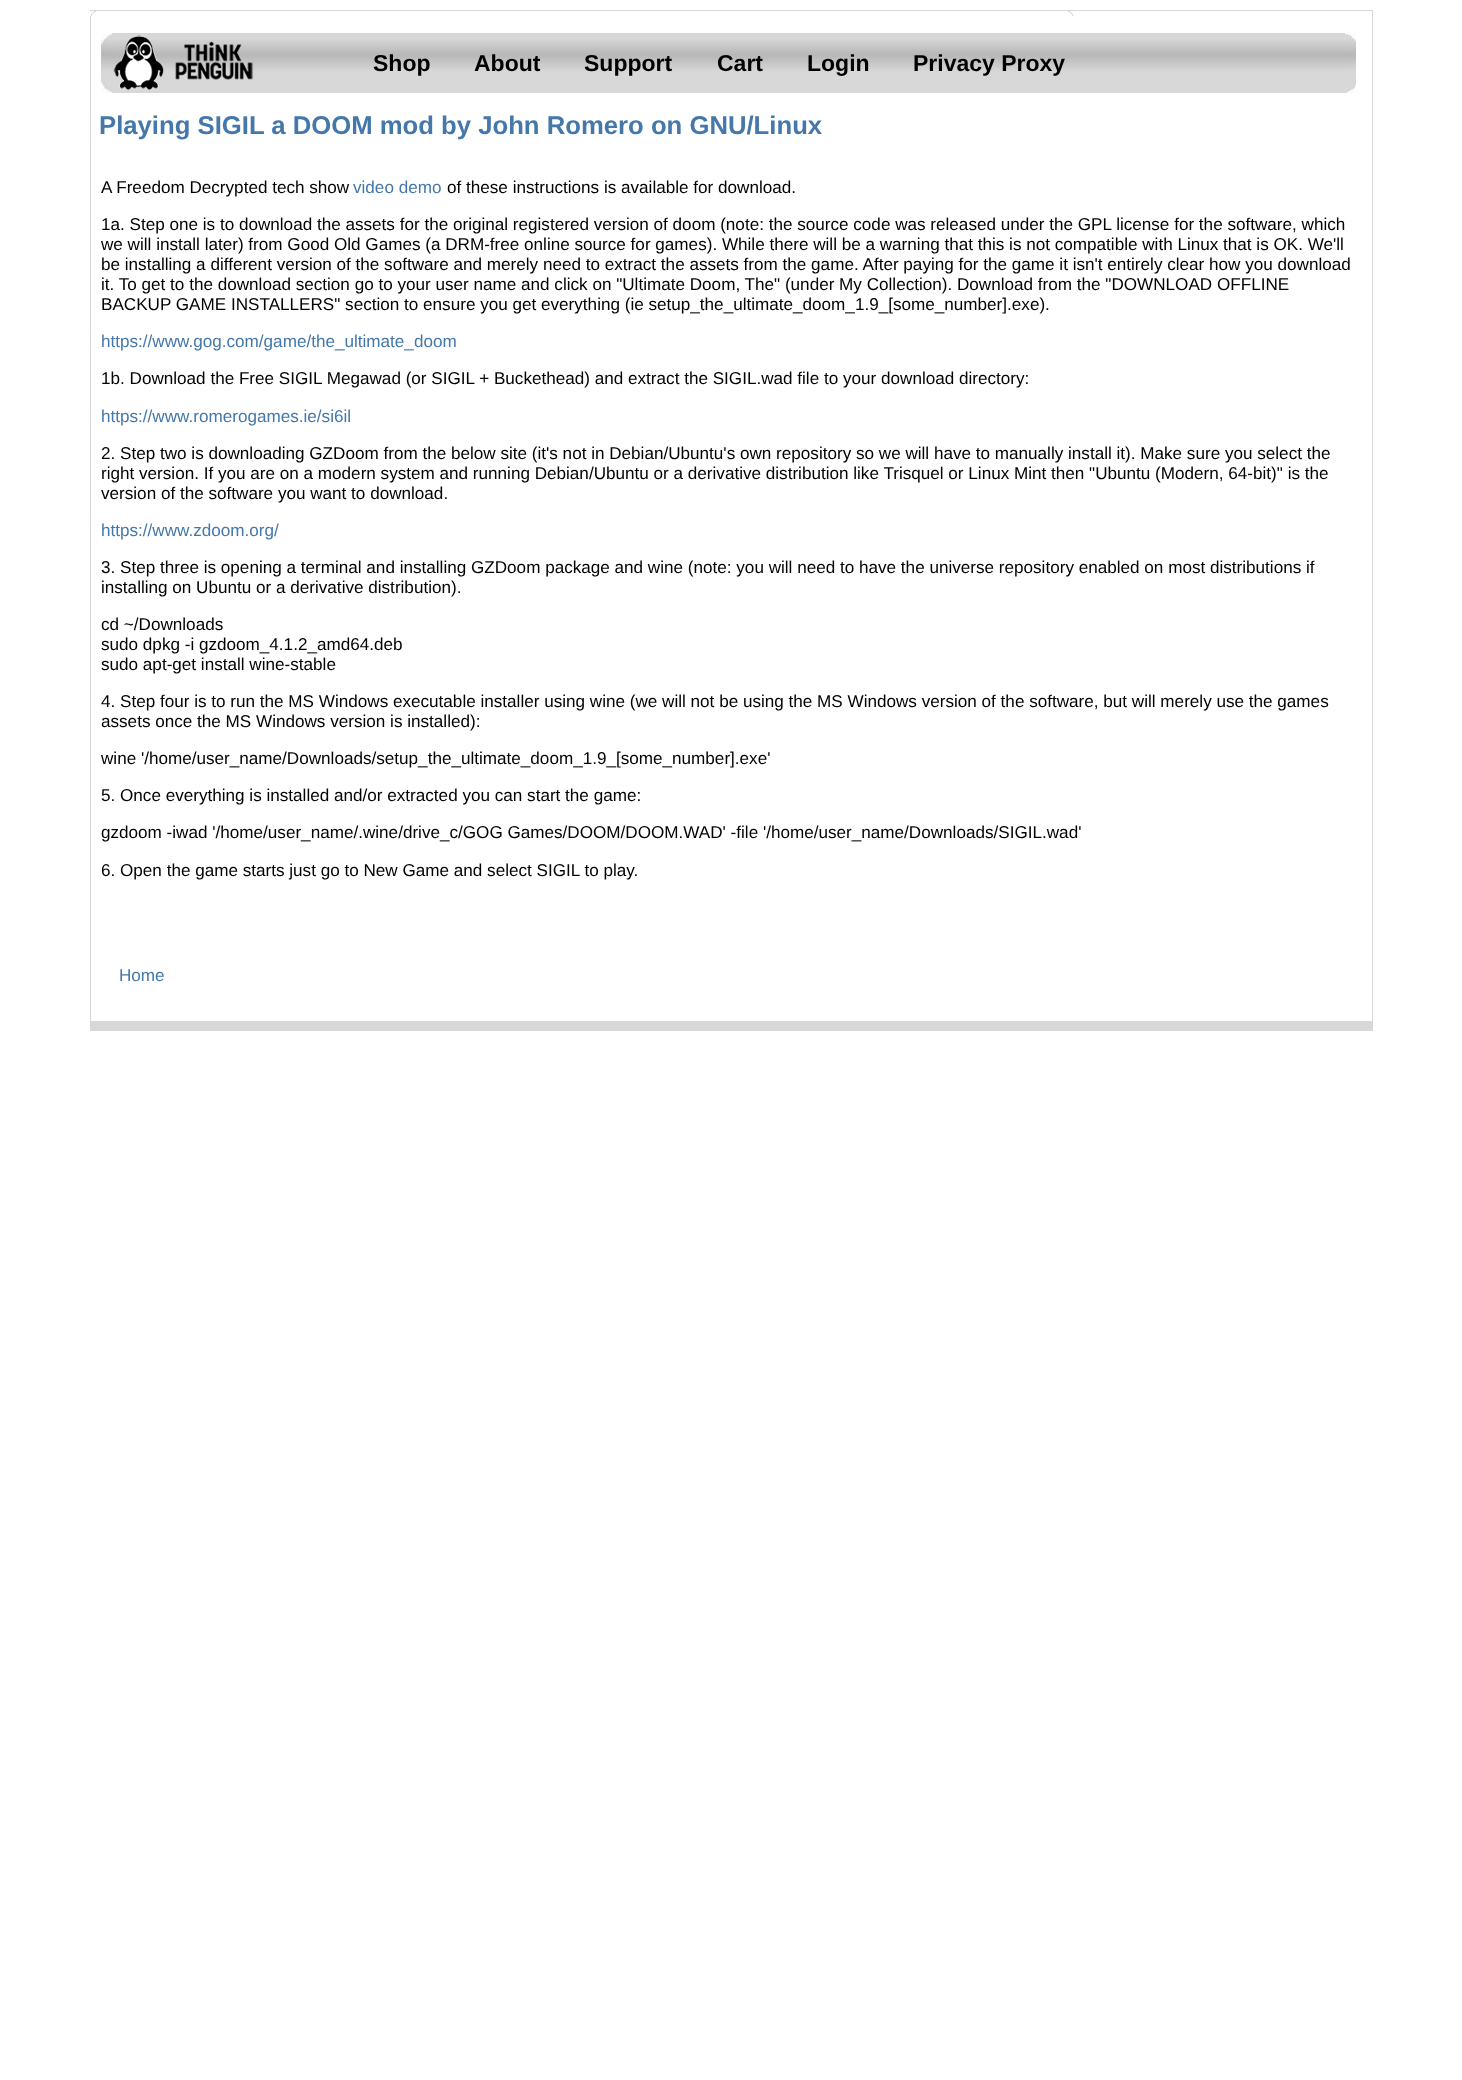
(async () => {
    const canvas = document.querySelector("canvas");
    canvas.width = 1462;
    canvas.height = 2080;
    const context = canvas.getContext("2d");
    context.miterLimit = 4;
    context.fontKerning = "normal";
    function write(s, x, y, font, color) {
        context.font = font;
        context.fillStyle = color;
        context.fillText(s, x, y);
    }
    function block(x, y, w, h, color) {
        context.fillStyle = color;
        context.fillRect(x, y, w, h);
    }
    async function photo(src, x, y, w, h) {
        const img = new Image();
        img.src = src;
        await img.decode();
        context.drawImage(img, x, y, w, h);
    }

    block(0, 0, 1462, 2080, "rgb(255, 255, 255)");
    block(90, 10, 1283, 1021, "rgb(216, 216, 216)");
    await photo("media/1.png", 90, 11, 1, 5);
    block(91, 11, 1281, 1010, "rgb(255, 255, 255)");
    await photo("media/2.png", 91, 11, 982, 5);
    await photo("media/3.png", 112, 33, 1233, 60);
    await photo("media/4.png", 101, 33, 11, 60);
    await photo("media/5.png", 113, 35, 141, 56);
    write("Shop", 373, 71, "bold 23px Liberation Sans", "rgb(0, 0, 0)");
    write("About", 474, 71, "bold 23px Liberation Sans", "rgb(0, 0, 0)");
    write("Support", 584, 71, "bold 23px Liberation Sans", "rgb(0, 0, 0)");
    write("Cart", 717, 71, "bold 23px Liberation Sans", "rgb(0, 0, 0)");
    write("Login", 807, 71, "bold 23px Liberation Sans", "rgb(0, 0, 0)");
    write("Privacy Proxy", 913, 71, "bold 23px Liberation Sans", "rgb(0, 0, 0)");
    await photo("media/6.png", 1345, 33, 11, 60);
    write("Playing SIGIL a DOOM mod by John Romero on GNU/Linux", 99, 134, "bold 25.7px Liberation Sans", "rgb(68, 119, 170)");
    write("A Freedom Decrypted tech show", 101, 193, "17.12px Liberation Sans", "rgb(0, 0, 0)");
    write("video demo", 353, 193, "17.12px Liberation Sans", "rgb(68, 119, 170)");
    write("of these instructions is available for download.", 447, 193, "17.12px Liberation Sans", "rgb(0, 0, 0)");
    write("1a. Step one is to download the assets for the original registered version of doom (note: the source code was released under the GPL license for the software, which", 101, 230, "17.12px Liberation Sans", "rgb(0, 0, 0)");
    write("we will install later) from Good Old Games (a DRM-free online source for games). While there will be a warning that this is not compatible with Linux that is OK. We'll", 101, 250, "17.12px Liberation Sans", "rgb(0, 0, 0)");
    write("be installing a different version of the software and merely need to extract the assets from the game. After paying for the game it isn't entirely clear how you download", 101, 270, "17.12px Liberation Sans", "rgb(0, 0, 0)");
    write("it. To get to the download section go to your user name and click on \"Ultimate Doom, The\" (under My Collection). Download from the \"DOWNLOAD OFFLINE", 101, 290, "17.12px Liberation Sans", "rgb(0, 0, 0)");
    write("BACKUP GAME INSTALLERS\" section to ensure you get everything (ie setup_the_ultimate_doom_1.9_[some_number].exe).", 101, 310, "17.12px Liberation Sans", "rgb(0, 0, 0)");
    write("https://www.gog.com/game/the_ultimate_doom", 101, 347, "17.12px Liberation Sans", "rgb(68, 119, 170)");
    write("1b. Download the Free SIGIL Megawad (or SIGIL + Buckethead) and extract the SIGIL.wad file to your download directory:", 101, 384, "17.12px Liberation Sans", "rgb(0, 0, 0)");
    write("https://www.romerogames.ie/si6il", 101, 422, "17.12px Liberation Sans", "rgb(68, 119, 170)");
    write("2. Step two is downloading GZDoom from the below site (it's not in Debian/Ubuntu's own repository so we will have to manually install it). Make sure you select the", 101, 459, "17.12px Liberation Sans", "rgb(0, 0, 0)");
    write("right version. If you are on a modern system and running Debian/Ubuntu or a derivative distribution like Trisquel or Linux Mint then \"Ubuntu (Modern, 64-bit)\" is the", 101, 479, "17.12px Liberation Sans", "rgb(0, 0, 0)");
    write("version of the software you want to download.", 101, 499, "17.12px Liberation Sans", "rgb(0, 0, 0)");
    write("https://www.zdoom.org/", 101, 536, "17.12px Liberation Sans", "rgb(68, 119, 170)");
    write("3. Step three is opening a terminal and installing GZDoom package and wine (note: you will need to have the universe repository enabled on most distributions if", 101, 573, "17.12px Liberation Sans", "rgb(0, 0, 0)");
    write("installing on Ubuntu or a derivative distribution).", 101, 593, "17.12px Liberation Sans", "rgb(0, 0, 0)");
    write("cd ~/Downloads", 101, 630, "17.12px Liberation Sans", "rgb(0, 0, 0)");
    write("sudo dpkg -i gzdoom_4.1.2_amd64.deb", 101, 650, "17.12px Liberation Sans", "rgb(0, 0, 0)");
    write("sudo apt-get install wine-stable", 101, 670, "17.12px Liberation Sans", "rgb(0, 0, 0)");
    write("4. Step four is to run the MS Windows executable installer using wine (we will not be using the MS Windows version of the software, but will merely use the games", 101, 707, "17.12px Liberation Sans", "rgb(0, 0, 0)");
    write("assets once the MS Windows version is installed):", 101, 727, "17.12px Liberation Sans", "rgb(0, 0, 0)");
    write("wine '/home/user_name/Downloads/setup_the_ultimate_doom_1.9_[some_number].exe'", 101, 764, "17.12px Liberation Sans", "rgb(0, 0, 0)");
    write("5. Once everything is installed and/or extracted you can start the game:", 101, 801, "17.12px Liberation Sans", "rgb(0, 0, 0)");
    write("gzdoom -iwad '/home/user_name/.wine/drive_c/GOG Games/DOOM/DOOM.WAD' -file '/home/user_name/Downloads/SIGIL.wad'", 101, 838, "17.12px Liberation Sans", "rgb(0, 0, 0)");
    write("6. Open the game starts just go to New Game and select SIGIL to play.", 101, 876, "17.12px Liberation Sans", "rgb(0, 0, 0)");
    write("Home", 119, 981, "17.12px Liberation Sans", "rgb(68, 119, 170)");
})();
